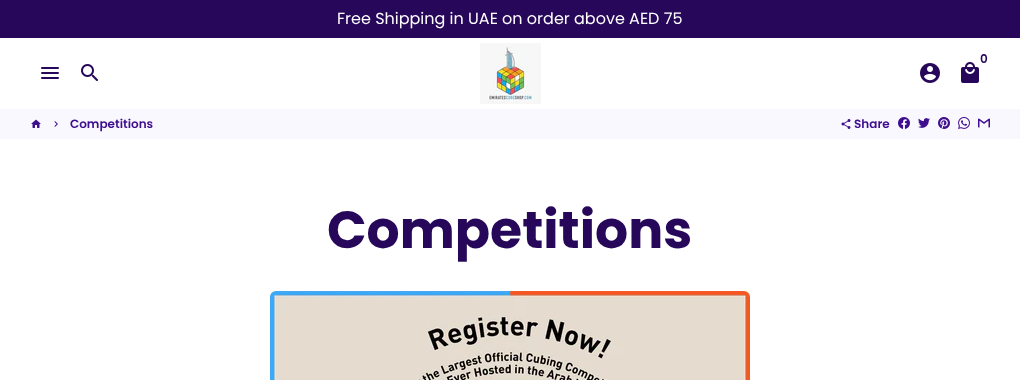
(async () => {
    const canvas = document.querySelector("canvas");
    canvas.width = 1020;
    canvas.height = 380;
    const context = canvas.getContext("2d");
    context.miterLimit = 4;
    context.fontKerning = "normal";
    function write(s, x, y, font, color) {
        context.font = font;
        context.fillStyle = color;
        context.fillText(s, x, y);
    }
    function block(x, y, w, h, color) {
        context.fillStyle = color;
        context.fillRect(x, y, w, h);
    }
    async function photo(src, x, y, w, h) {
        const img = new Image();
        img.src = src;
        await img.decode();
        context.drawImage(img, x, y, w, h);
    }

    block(0, 0, 1020, 380, "rgb(255, 255, 255)");
    block(0, 0, 1020, 38, "rgb(38, 7, 89)");
    write("Free Shipping in UAE on order above AED 75", 337, 24, "16px Poppins", "rgb(255, 255, 255)");
    await photo("media/1.png", 480, 43, 61, 61);
    write("0", 980, 63, "600 12px Poppins", "rgb(38, 7, 89)");
    await photo("media/2.png", 961, 62, 18, 21);
    await photo("media/3.png", 920, 63, 20, 20);
    await photo("media/4.png", 41, 67, 18, 12);
    await photo("media/5.png", 81, 64, 17, 17);
    block(0, 109, 1020, 30, "rgb(250, 248, 255)");
    await photo("media/6.png", 31, 119, 10, 9);
    await photo("media/7.png", 54, 121, 4, 6);
    write("Competitions", 70, 128, "600 12px Poppins", "rgb(62, 14, 143)");
    await photo("media/8.png", 841, 119, 10, 10);
    write("Share", 854, 128, "600 12px Poppins", "rgb(62, 14, 143)");
    await photo("media/9.png", 898, 117, 12, 12);
    await photo("media/10.png", 918, 118, 12, 10);
    await photo("media/11.png", 938, 117, 12, 12);
    await photo("media/12.png", 958, 117, 12, 12);
    await photo("media/13.png", 978, 118, 12, 10);
    write("Competitions", 327, 248, "bold 52px Poppins", "rgb(38, 7, 89)");
    await photo("media/14.png", 270, 291, 480, 89);
})();
